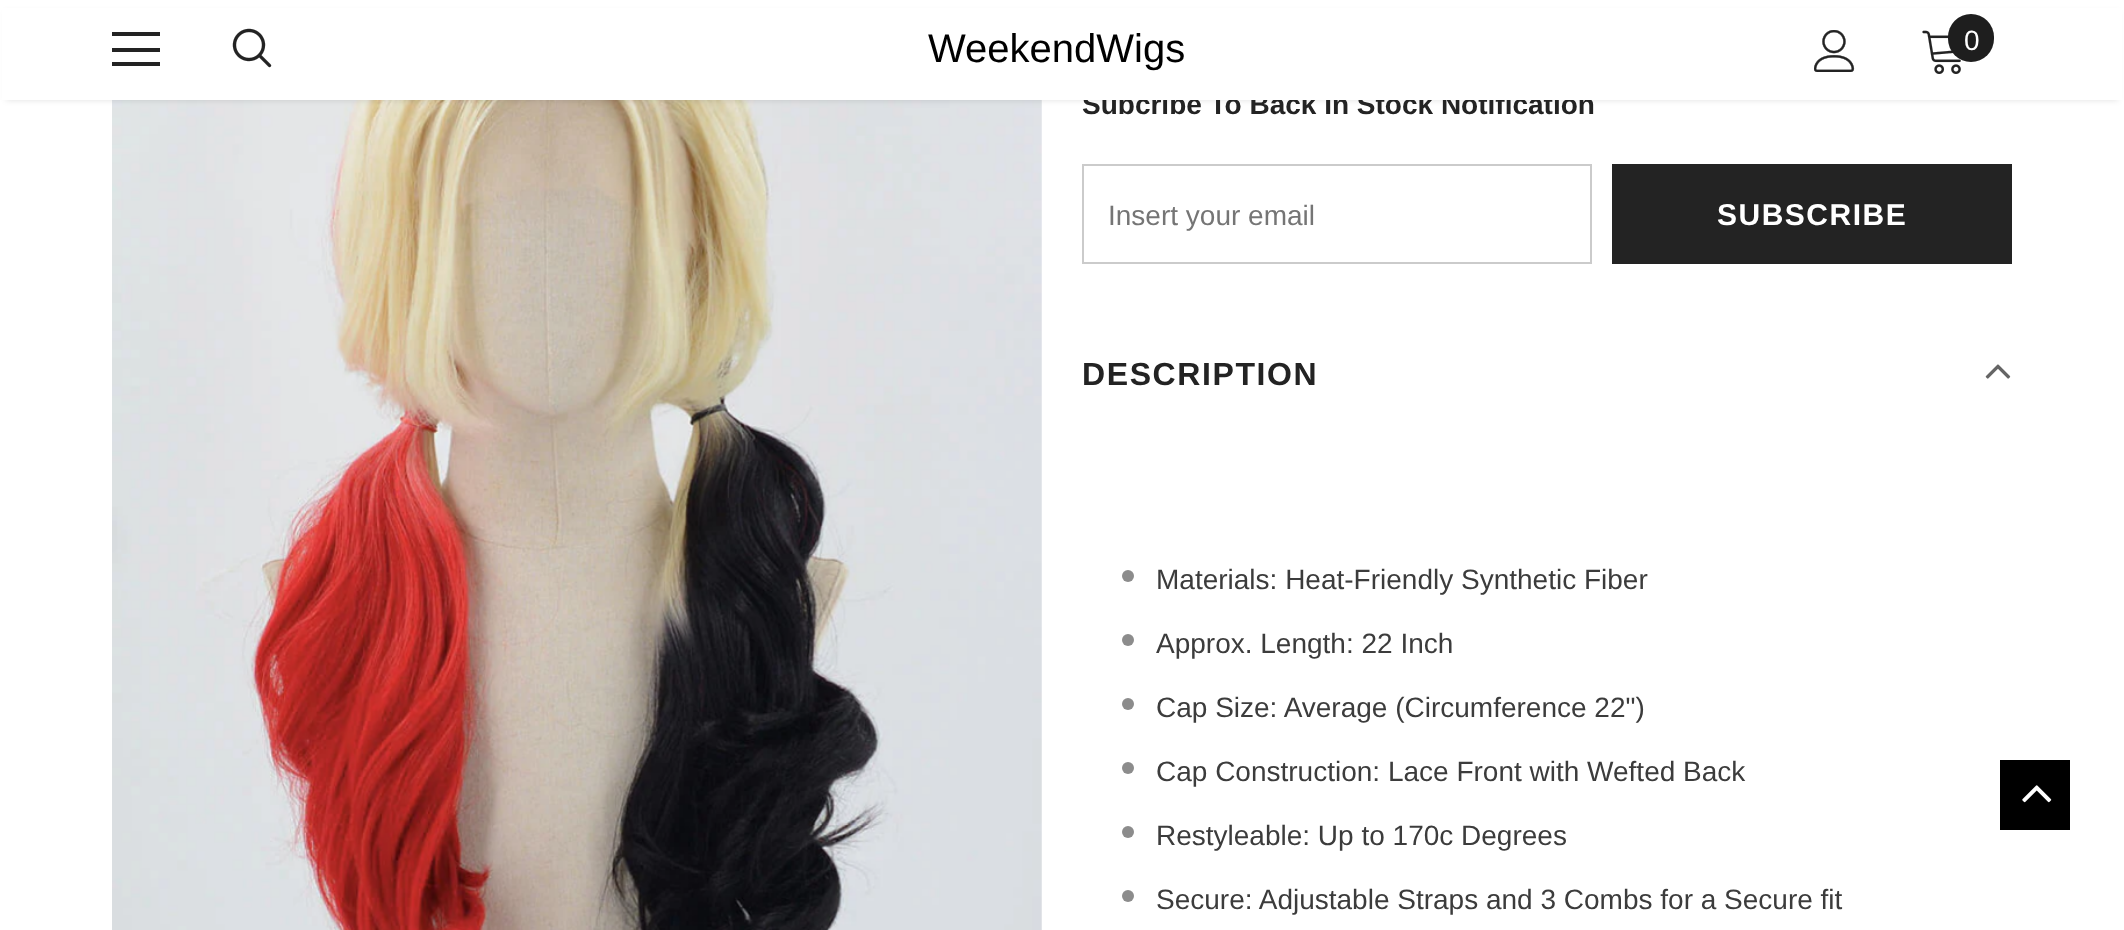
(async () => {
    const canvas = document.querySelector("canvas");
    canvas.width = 2124;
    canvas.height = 930;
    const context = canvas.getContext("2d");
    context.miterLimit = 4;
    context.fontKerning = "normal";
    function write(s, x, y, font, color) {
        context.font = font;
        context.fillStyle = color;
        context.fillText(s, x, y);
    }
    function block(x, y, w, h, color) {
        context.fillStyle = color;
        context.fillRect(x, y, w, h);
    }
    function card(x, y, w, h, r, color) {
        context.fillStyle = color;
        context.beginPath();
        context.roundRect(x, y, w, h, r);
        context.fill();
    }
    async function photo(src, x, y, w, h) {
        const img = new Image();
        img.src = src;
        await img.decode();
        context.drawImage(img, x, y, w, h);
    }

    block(0, 0, 2124, 930, "rgb(255, 255, 255)");
    await photo("media/4.png", 112, 100, 930, 830);
    context.fillStyle = "rgba(0, 0, 0, 0.12)";
    context.filter = "blur(3px)";
    context.beginPath();
    context.rect(6, 12, 2112, 88);
    context.fill();
    context.filter = "none";
    write("Subcribe To Back In Stock Notification", 1082, 114, "bold 28px Liberation Sans", "rgb(35, 35, 35)");
    block(2, 8, 2120, 92, "rgb(255, 255, 255)");
    block(112, 32, 48, 4, "rgb(35, 35, 35)");
    block(112, 48, 48, 4, "rgb(35, 35, 35)");
    block(112, 62, 48, 4, "rgb(35, 35, 35)");
    await photo("media/1.png", 232, 28, 40, 40);
    write("WeekendWigs", 928, 62, "40px Liberation Sans", "rgb(0, 0, 0)");
    await photo("media/2.png", 1814, 30, 41, 42);
    await photo("media/3.png", 1922, 30, 39, 44);
    card(1948, 14, 46, 48, 23, "rgb(30, 30, 30)");
    write("0", 1964, 50, "28px Liberation Sans", "rgb(255, 255, 255)");
    context.strokeStyle = "rgb(203, 203, 203)";
    context.lineWidth = 2;
    context.strokeRect(1083, 165, 508, 98);
    write("Insert your email", 1108, 225, "28px Liberation Sans", "rgb(117, 117, 117)");
    block(1612, 164, 400, 100, "rgb(35, 35, 35)");
    context.letterSpacing = "1.5px";
    write("SUBSCRIBE", 1717, 225, "bold 30px Liberation Sans", "rgb(255, 255, 255)");
    context.letterSpacing = "1.6px";
    write("DESCRIPTION", 1082, 385, "bold 32px Liberation Sans", "rgb(35, 35, 35)");
    await photo("media/5.png", 1985, 364, 26, 15);
    context.fillStyle = "rgb(140, 140, 140)";
    context.beginPath();
    context.arc(1128, 576, 6, 0, Math.PI * 2);
    context.fill();
    context.letterSpacing = "0px";
    write("Materials: Heat-Friendly Synthetic Fiber", 1156, 589, "28px Liberation Sans", "rgb(60, 60, 60)");
    context.fillStyle = "rgb(140, 140, 140)";
    context.beginPath();
    context.arc(1128, 640, 6, 0, Math.PI * 2);
    context.fill();
    write("Approx. Length: 22 Inch", 1156, 653, "28px Liberation Sans", "rgb(60, 60, 60)");
    context.fillStyle = "rgb(140, 140, 140)";
    context.beginPath();
    context.arc(1128, 704, 6, 0, Math.PI * 2);
    context.fill();
    write("Cap Size: Average (Circumference 22\")", 1156, 717, "28px Liberation Sans", "rgb(60, 60, 60)");
    context.fillStyle = "rgb(140, 140, 140)";
    context.beginPath();
    context.arc(1128, 768, 6, 0, Math.PI * 2);
    context.fill();
    write("Cap Construction: Lace Front with Wefted Back", 1156, 781, "28px Liberation Sans", "rgb(60, 60, 60)");
    context.fillStyle = "rgb(140, 140, 140)";
    context.beginPath();
    context.arc(1128, 832, 6, 0, Math.PI * 2);
    context.fill();
    write("Restyleable: Up to 170c Degrees", 1156, 845, "28px Liberation Sans", "rgb(60, 60, 60)");
    context.fillStyle = "rgb(140, 140, 140)";
    context.beginPath();
    context.arc(1128, 896, 6, 0, Math.PI * 2);
    context.fill();
    write("Secure: Adjustable Straps and 3 Combs for a Secure fit", 1156, 909, "28px Liberation Sans", "rgb(60, 60, 60)");
    block(2000, 760, 70, 70, "rgb(0, 0, 0)");
    await photo("media/6.png", 2022, 785, 30, 18);
})();
